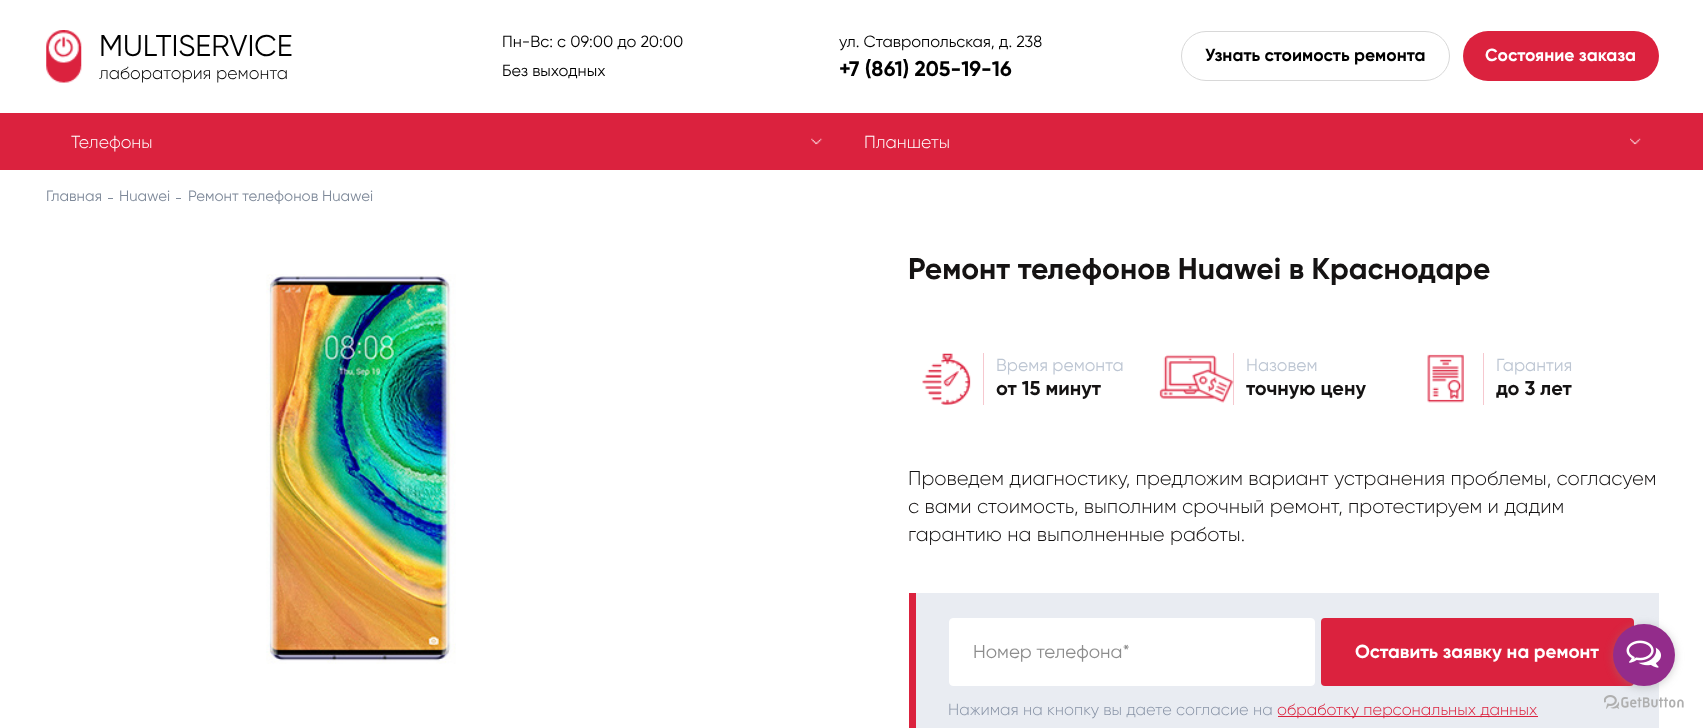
(async () => {
    const canvas = document.querySelector("canvas");
    canvas.width = 1703;
    canvas.height = 728;
    const context = canvas.getContext("2d");
    context.miterLimit = 4;
    context.fontKerning = "normal";
    function write(s, x, y, font, color) {
        context.font = font;
        context.fillStyle = color;
        context.fillText(s, x, y);
    }
    function block(x, y, w, h, color) {
        context.fillStyle = color;
        context.fillRect(x, y, w, h);
    }
    function card(x, y, w, h, r, color) {
        context.fillStyle = color;
        context.beginPath();
        context.roundRect(x, y, w, h, r);
        context.fill();
    }
    async function photo(src, x, y, w, h) {
        const img = new Image();
        img.src = src;
        await img.decode();
        context.drawImage(img, x, y, w, h);
    }

    block(0, 0, 1703, 728, "rgb(255, 255, 255)");
    await photo("media/1.png", 46, 30, 36, 53);
    write("MULTISERVICE", 99, 56, "30px Gilroy", "rgb(0, 0, 0)");
    write("лаборатория ремонта", 99, 79, "300 17.5px Gilroy", "rgb(0, 0, 0)");
    write("Пн-Вс: с 09:00 до 20:00", 502, 47, "16.25px Gilroy", "rgb(0, 0, 0)");
    write("Без выходных", 502, 76, "16.25px Gilroy", "rgb(0, 0, 0)");
    write("ул. Ставропольская, д. 238", 839, 47, "16.25px Gilroy", "rgb(0, 0, 0)");
    write("+7 (861) 205-19-16", 839, 76, "bold 21.25px Gilroy", "rgb(0, 0, 0)");
    context.beginPath();
    context.roundRect(1181.5, 31.5, 268, 49, 24.5);
    context.strokeStyle = "rgb(216, 216, 216)";
    context.stroke();
    write("Узнать стоимость ремонта", 1205, 61, "bold 17.5px Gilroy", "rgb(0, 0, 0)");
    card(1463, 31, 196, 50, 25, "rgb(219, 34, 62)");
    write("Состояние заказа", 1485, 61, "bold 17.5px Gilroy", "rgb(255, 255, 255)");
    block(0, 113, 1703, 57, "rgb(219, 34, 62)");
    write("Телефоны", 71, 148, "300 17.5px Gilroy", "rgb(255, 255, 255)");
    await photo("media/2.png", 811, 138, 12, 7);
    write("Планшеты", 864, 148, "300 17.5px Gilroy", "rgb(255, 255, 255)");
    await photo("media/3.png", 1630, 138, 11, 7);
    write("Главная", 46, 201, "15px Gilroy", "rgb(127, 138, 154)");
    block(108, 198, 5, 1, "rgb(127, 138, 154)");
    write("Huawei", 119, 201, "15px Gilroy", "rgb(127, 138, 154)");
    block(176, 198, 5, 1, "rgb(127, 138, 154)");
    write("Ремонт телефонов Huawei", 188, 201, "15px Gilroy", "rgb(127, 138, 154)");
    await photo("media/4.png", 266, 274, 190, 390);
    write("Ремонт телефонов Huawei в Краснодаре", 908, 279, "bold 30px Gilroy", "rgb(21, 19, 19)");
    block(922, 353, 62, 52, "rgb(219, 34, 62)");
    await photo("media/5.png", 909, 353, 75, 52);
    write("Время ремонта", 996, 371, "17.5px Gilroy", "rgb(189, 198, 211)");
    write("от 15 минут", 996, 395, "bold 20px Gilroy", "rgb(21, 19, 19)");
    block(1159, 353, 75, 52, "rgb(219, 34, 62)");
    await photo("media/6.png", 1159, 353, 75, 52);
    write("Назовем", 1246, 371, "17.5px Gilroy", "rgb(189, 198, 211)");
    write("точную цену", 1246, 395, "bold 20px Gilroy", "rgb(21, 19, 19)");
    block(1427, 353, 57, 52, "rgb(219, 34, 62)");
    await photo("media/7.png", 1409, 353, 75, 52);
    write("Гарантия", 1496, 371, "17.5px Gilroy", "rgb(189, 198, 211)");
    write("до 3 лет", 1496, 395, "bold 20px Gilroy", "rgb(21, 19, 19)");
    write("Проведем диагностику, предложим вариант устранения проблемы, согласуем", 908, 485, "300 20px Gilroy", "rgb(21, 19, 19)");
    write("с вами стоимость, выполним срочный ремонт, протестируем и дадим", 908, 513, "300 20px Gilroy", "rgb(21, 19, 19)");
    write("гарантию на выполненные работы.", 908, 541, "300 20px Gilroy", "rgb(21, 19, 19)");
    block(916, 593, 743, 135, "rgb(233, 236, 242)");
    block(909, 593, 7, 135, "rgb(219, 34, 62)");
    context.fillStyle = "rgb(255, 255, 255)";
    context.beginPath();
    context.roundRect(949.5, 618.5, 365, 67, 3.5);
    context.fill();
    context.strokeStyle = "rgb(255, 255, 255)";
    context.stroke();
    write("Номер телефона*", 973, 658, "18.75px Gilroy", "rgb(141, 141, 141)");
    card(1321, 618, 313, 68, 4, "rgb(219, 34, 62)");
    write("Оставить заявку на ремонт", 1355, 658, "bold 18.75px Gilroy", "rgb(255, 255, 255)");
    write("Нажимая на кнопку вы даете согласие на", 948, 715, "300 16.25px Gilroy", "rgb(137, 148, 167)");
    block(1278, 716, 260, 1, "rgb(219, 34, 62)");
    write("обработку персональных данных", 1277, 715, "300 16.25px Gilroy", "rgb(219, 34, 62)");
    await photo("media/9.png", 1604, 695, 80, 14);
    context.fillStyle = "rgba(136, 136, 136, 0.4)";
    context.filter = "blur(4.5px)";
    context.beginPath();
    context.roundRect(1613, 625, 62, 63, 31);
    context.fill();
    context.filter = "none";
    context.fillStyle = "rgb(147, 44, 139)";
    context.beginPath();
    context.arc(1644, 655, 31, 0, Math.PI * 2);
    context.fill();
    await photo("media/8.png", 1626, 640, 35, 28);
})();
